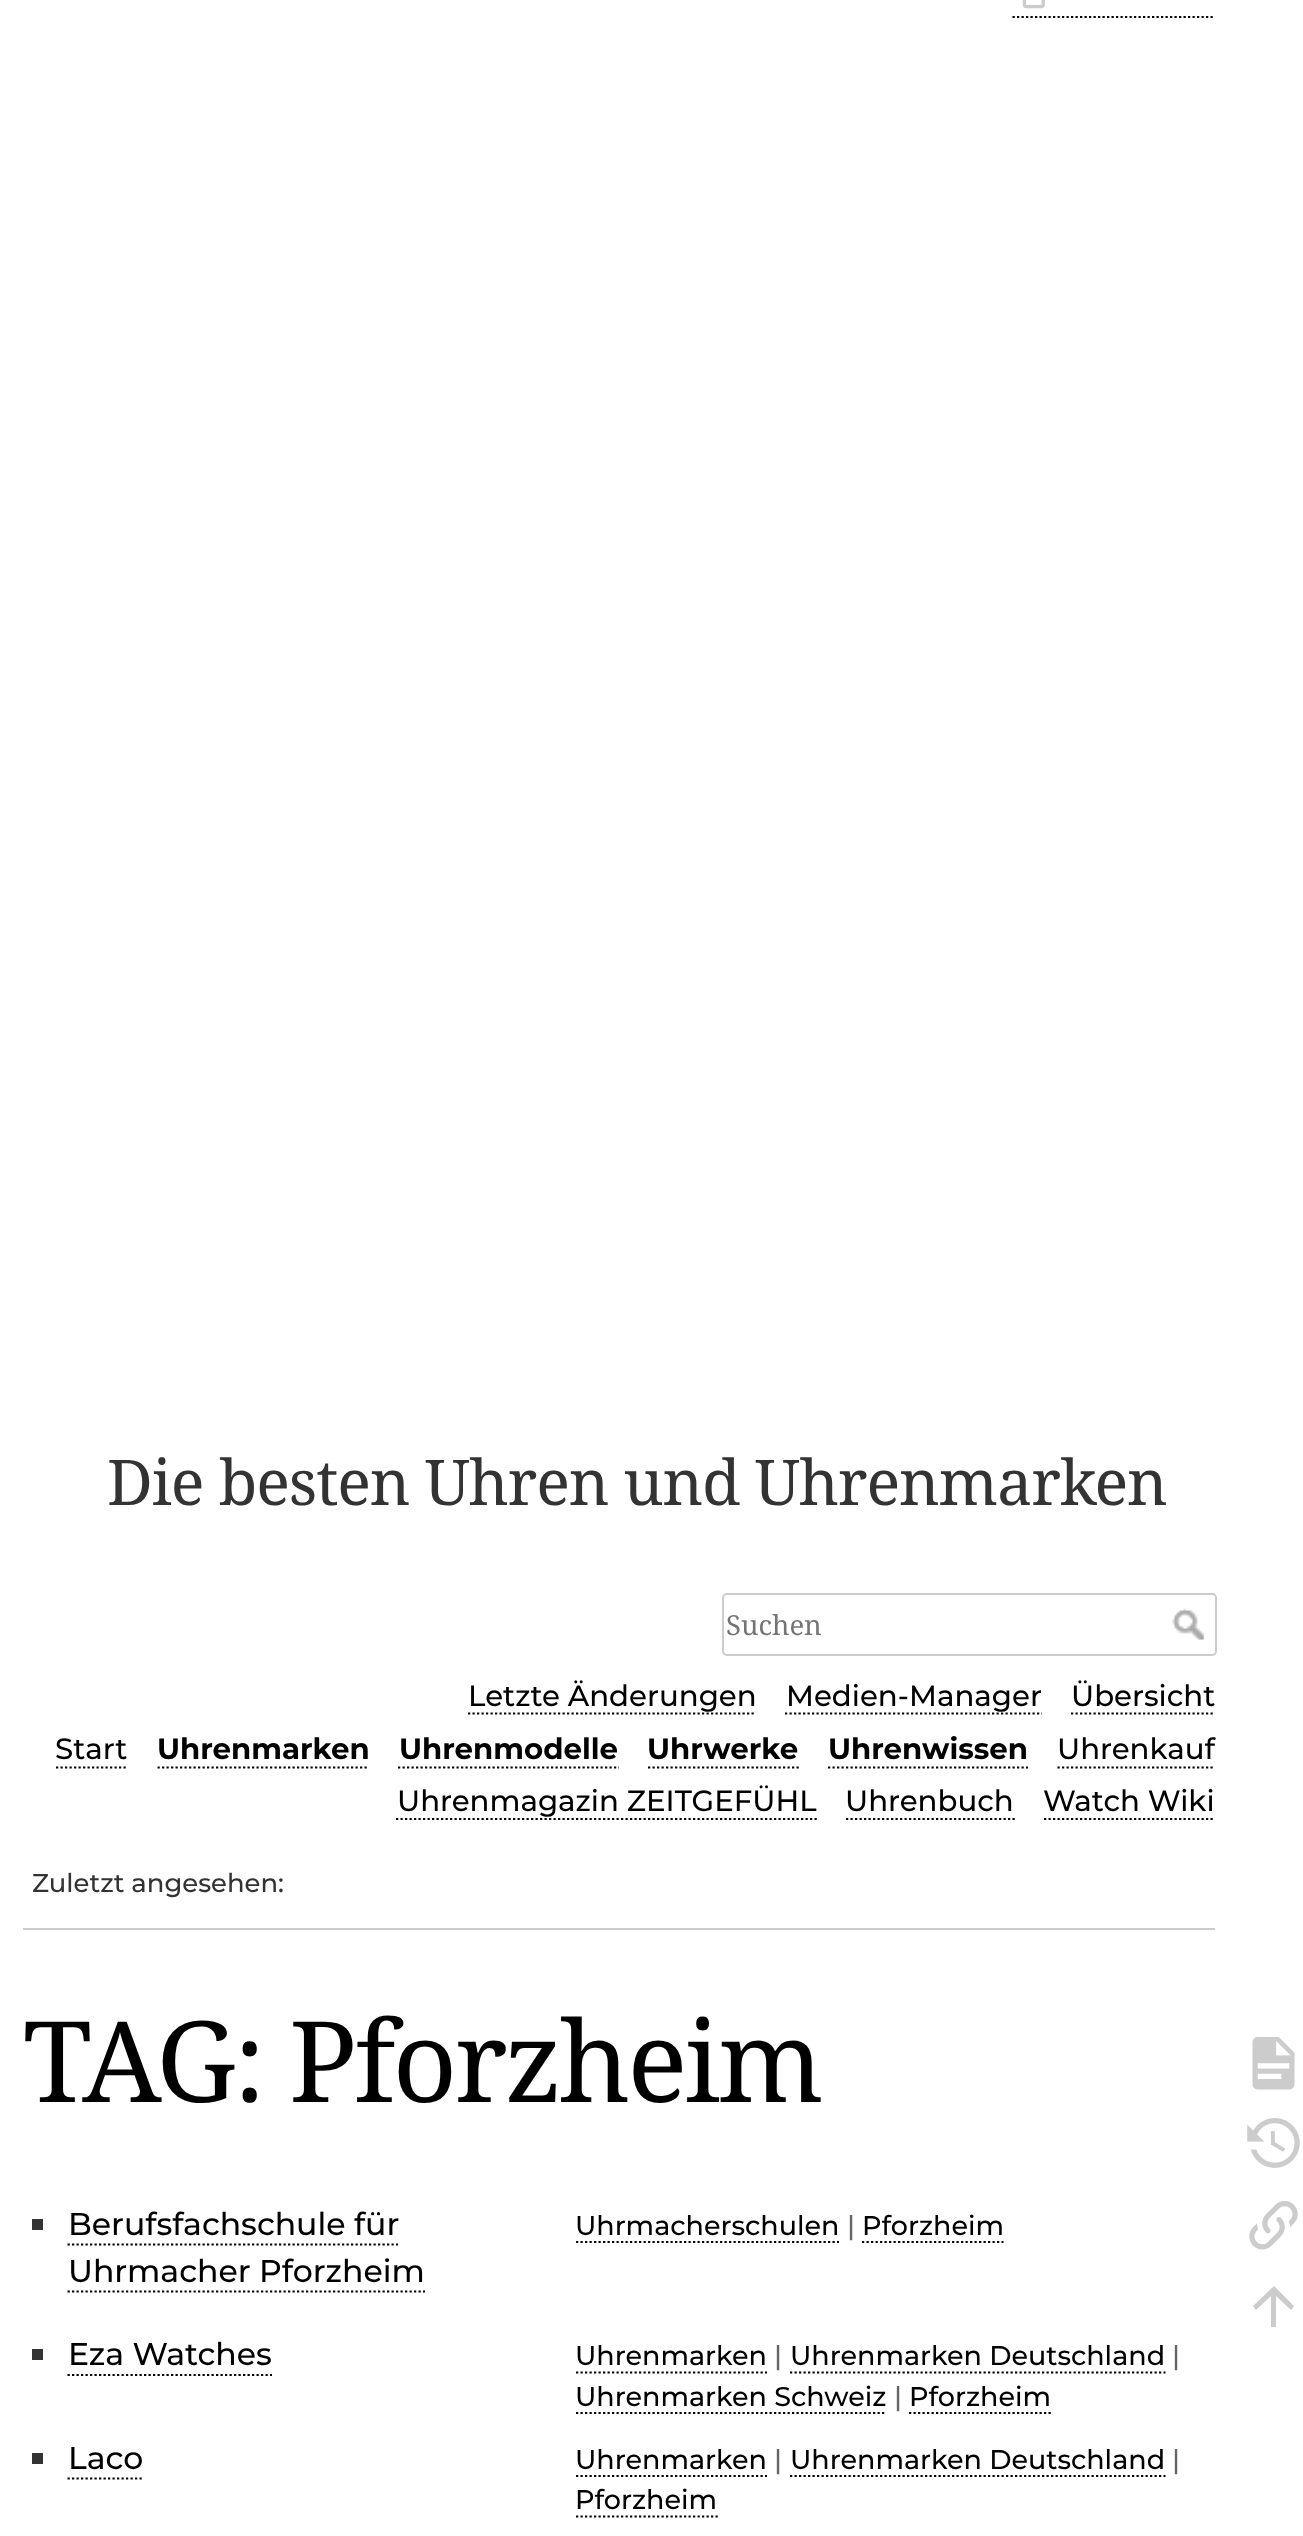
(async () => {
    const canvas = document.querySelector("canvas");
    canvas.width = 1303;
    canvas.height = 2536;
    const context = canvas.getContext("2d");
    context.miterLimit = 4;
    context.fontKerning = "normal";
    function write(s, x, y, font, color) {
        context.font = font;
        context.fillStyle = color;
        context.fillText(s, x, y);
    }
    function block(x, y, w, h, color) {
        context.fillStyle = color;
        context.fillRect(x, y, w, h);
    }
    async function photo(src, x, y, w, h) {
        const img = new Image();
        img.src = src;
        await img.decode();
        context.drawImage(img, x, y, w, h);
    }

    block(0, 0, 1303, 2536, "rgb(255, 255, 255)");
    block(23, 1928, 1192, 2, "rgb(204, 204, 204)");
    context.letterSpacing = "-1.1px";
    write("Die besten Uhren und Uhrenmarken", 107, 1505, "63px Noto Serif", "rgb(51, 51, 51)");
    context.beginPath();
    context.moveTo(1012.5, 17);
    context.lineTo(1215, 17);
    context.strokeStyle = "rgb(0, 0, 0)";
    context.lineWidth = 2.2;
    context.setLineDash([2.25, 2.25]);
    context.stroke();
    await photo("media/1.png", 1022, 0, 23, 9);
    context.beginPath();
    context.roundRect(723, 1594, 493, 61, 4);
    context.strokeStyle = "rgb(204, 204, 204)";
    context.lineWidth = 2;
    context.setLineDash([]);
    context.stroke();
    context.letterSpacing = "0px";
    write("Suchen", 726, 1635, "27.5px Noto Serif", "rgb(117, 117, 117)");
    await photo("media/2.png", 1172, 1608, 32, 32);
    write("Letzte Änderungen", 468, 1706, "100 29.25px Montserrat", "rgb(0, 0, 0)");
    context.beginPath();
    context.moveTo(468, 1713.5);
    context.lineTo(756, 1713.5);
    context.strokeStyle = "rgb(0, 0, 0)";
    context.lineWidth = 2.2;
    context.setLineDash([2.25, 2.25]);
    context.stroke();
    write("Medien-Manager", 786, 1706, "100 29.25px Montserrat", "rgb(0, 0, 0)");
    context.beginPath();
    context.moveTo(785, 1713.5);
    context.lineTo(1042, 1713.5);
    context.stroke();
    write("Übersicht", 1071, 1706, "100 29.25px Montserrat", "rgb(0, 0, 0)");
    context.beginPath();
    context.moveTo(1071, 1713.5);
    context.lineTo(1215, 1713.5);
    context.stroke();
    write("Start", 55, 1759, "100 29.25px Montserrat", "rgb(0, 0, 0)");
    context.beginPath();
    context.moveTo(56, 1767.5);
    context.lineTo(128, 1767.5);
    context.stroke();
    write("Uhrenmarken", 157, 1759, "100 29.25px 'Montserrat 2'", "rgb(0, 0, 0)");
    context.beginPath();
    context.moveTo(157.5, 1767.5);
    context.lineTo(369, 1767.5);
    context.stroke();
    write("Uhrenmodelle", 399, 1759, "100 29.25px 'Montserrat 2'", "rgb(0, 0, 0)");
    context.beginPath();
    context.moveTo(398, 1767.5);
    context.lineTo(619, 1767.5);
    context.stroke();
    write("Uhrwerke", 647, 1759, "100 29.25px 'Montserrat 2'", "rgb(0, 0, 0)");
    context.beginPath();
    context.moveTo(648, 1767.5);
    context.lineTo(799, 1767.5);
    context.stroke();
    write("Uhrenwissen", 828, 1759, "100 29.25px 'Montserrat 2'", "rgb(0, 0, 0)");
    context.beginPath();
    context.moveTo(828, 1767.5);
    context.lineTo(1028, 1767.5);
    context.stroke();
    write("Uhrenkauf", 1057, 1759, "100 29.25px Montserrat", "rgb(0, 0, 0)");
    context.beginPath();
    context.moveTo(1057.5, 1767.5);
    context.lineTo(1215, 1767.5);
    context.stroke();
    write("Uhrenmagazin ZEITGEFÜHL", 397, 1811, "100 29.25px Montserrat", "rgb(0, 0, 0)");
    context.beginPath();
    context.moveTo(396, 1819);
    context.lineTo(817, 1819);
    context.stroke();
    write("Uhrenbuch", 845, 1811, "100 29.25px Montserrat", "rgb(0, 0, 0)");
    context.beginPath();
    context.moveTo(846, 1819);
    context.lineTo(1015, 1819);
    context.stroke();
    write("Watch Wiki", 1043, 1811, "100 29.25px Montserrat", "rgb(0, 0, 0)");
    context.beginPath();
    context.moveTo(1044, 1819);
    context.lineTo(1215, 1819);
    context.stroke();
    write("Zuletzt angesehen:", 32, 1892, "100 25.9px Montserrat", "rgb(51, 51, 51)");
    context.letterSpacing = "-3px";
    write("TAG: Pforzheim", 23, 2102, "112.5px Noto Serif", "rgb(0, 0, 0)");
    block(32, 2219, 11, 11, "rgb(51, 51, 51)");
    context.letterSpacing = "0px";
    write("Berufsfachschule für", 68, 2235, "100 31.5px Montserrat", "rgb(0, 0, 0)");
    context.beginPath();
    context.moveTo(67.5, 2244.5);
    context.lineTo(398, 2244.5);
    context.stroke();
    write("Uhrmacher Pforzheim", 68, 2282, "100 31.5px Montserrat", "rgb(0, 0, 0)");
    context.beginPath();
    context.moveTo(67.5, 2291.5);
    context.lineTo(425, 2291.5);
    context.stroke();
    write("Uhrmacherschulen", 575, 2235, "100 27px Montserrat", "rgb(0, 0, 0)");
    context.beginPath();
    context.moveTo(576, 2242);
    context.lineTo(839, 2242);
    context.stroke();
    write("|", 847, 2235, "100 27px Montserrat", "rgb(102, 102, 102)");
    write("Pforzheim", 862, 2235, "100 27px Montserrat", "rgb(0, 0, 0)");
    context.beginPath();
    context.moveTo(862, 2242);
    context.lineTo(1003.5, 2242);
    context.stroke();
    block(32, 2349, 11, 11, "rgb(51, 51, 51)");
    write("Eza Watches", 68, 2365, "100 31.5px Montserrat", "rgb(0, 0, 0)");
    context.beginPath();
    context.moveTo(67.5, 2375);
    context.lineTo(272, 2375);
    context.stroke();
    write("Uhrenmarken", 575, 2365, "100 27px Montserrat", "rgb(0, 0, 0)");
    context.beginPath();
    context.moveTo(576, 2372.5);
    context.lineTo(767, 2372.5);
    context.stroke();
    write("|", 774, 2365, "100 27px Montserrat", "rgb(102, 102, 102)");
    write("Uhrenmarken Deutschland", 790, 2365, "100 27px Montserrat", "rgb(0, 0, 0)");
    context.beginPath();
    context.moveTo(790, 2372.5);
    context.lineTo(1165.5, 2372.5);
    context.stroke();
    write("|", 1172, 2365, "100 27px Montserrat", "rgb(102, 102, 102)");
    write("Uhrenmarken Schweiz", 575, 2406, "100 27px Montserrat", "rgb(0, 0, 0)");
    context.beginPath();
    context.moveTo(576, 2413);
    context.lineTo(886.5, 2413);
    context.stroke();
    write("|", 894, 2406, "100 27px Montserrat", "rgb(102, 102, 102)");
    write("Pforzheim", 909, 2406, "100 27px Montserrat", "rgb(0, 0, 0)");
    context.beginPath();
    context.moveTo(909, 2413);
    context.lineTo(1051, 2413);
    context.stroke();
    block(32, 2453, 11, 11, "rgb(51, 51, 51)");
    write("Laco", 68, 2469, "100 31.5px Montserrat", "rgb(0, 0, 0)");
    context.beginPath();
    context.moveTo(67.5, 2478.5);
    context.lineTo(142, 2478.5);
    context.stroke();
    write("Uhrenmarken", 575, 2469, "100 27px Montserrat", "rgb(0, 0, 0)");
    context.beginPath();
    context.moveTo(576, 2476);
    context.lineTo(767, 2476);
    context.stroke();
    write("|", 774, 2469, "100 27px Montserrat", "rgb(102, 102, 102)");
    write("Uhrenmarken Deutschland", 790, 2469, "100 27px Montserrat", "rgb(0, 0, 0)");
    context.beginPath();
    context.moveTo(790, 2476);
    context.lineTo(1165.5, 2476);
    context.stroke();
    write("|", 1172, 2469, "100 27px Montserrat", "rgb(102, 102, 102)");
    write("Pforzheim", 575, 2509, "100 27px Montserrat", "rgb(0, 0, 0)");
    context.beginPath();
    context.moveTo(576, 2516.5);
    context.lineTo(718, 2516.5);
    context.stroke();
    await photo("media/3.png", 1252, 2037, 43, 53);
    await photo("media/4.png", 1247, 2118, 53, 50);
    await photo("media/5.png", 1249, 2201, 49, 49);
    context.fillStyle = "rgb(204, 204, 204)";
    context.beginPath();
    context.moveTo(1276, 2327);
    context.lineTo(1271, 2327);
    context.lineTo(1271, 2296);
    context.lineTo(1256, 2310);
    context.lineTo(1253, 2306);
    context.lineTo(1274, 2286);
    context.lineTo(1294, 2306);
    context.lineTo(1291, 2310);
    context.lineTo(1276, 2296);
    context.closePath();
    context.fill();
})();
